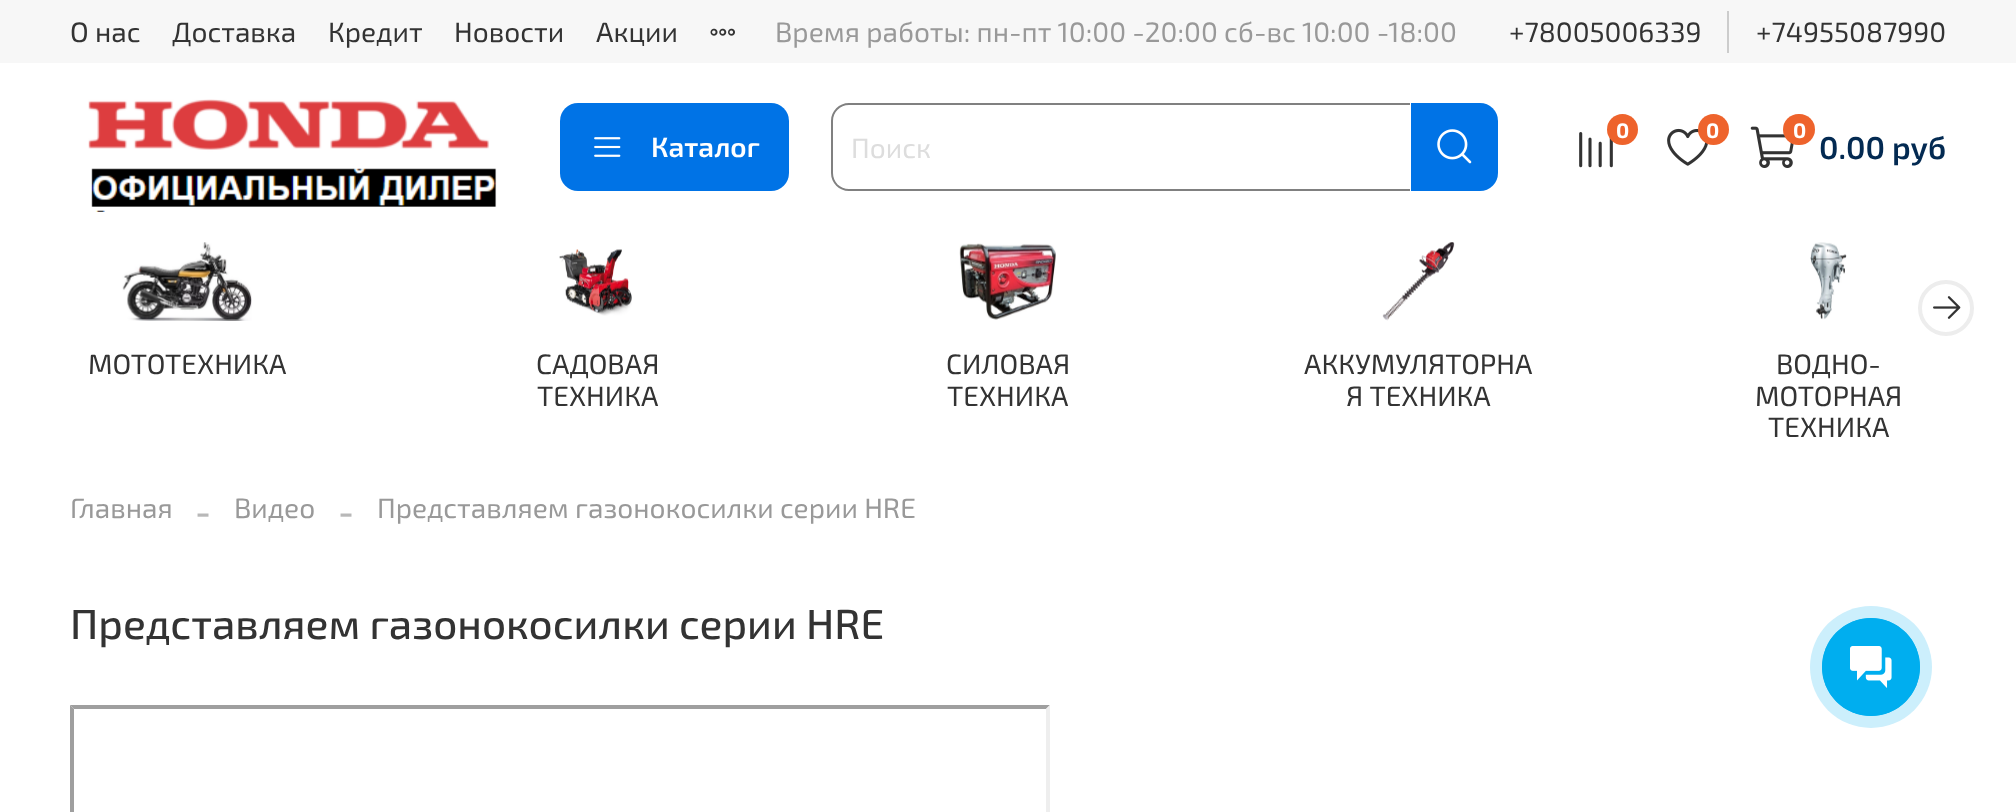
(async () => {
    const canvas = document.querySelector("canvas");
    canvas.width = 2016;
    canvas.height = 812;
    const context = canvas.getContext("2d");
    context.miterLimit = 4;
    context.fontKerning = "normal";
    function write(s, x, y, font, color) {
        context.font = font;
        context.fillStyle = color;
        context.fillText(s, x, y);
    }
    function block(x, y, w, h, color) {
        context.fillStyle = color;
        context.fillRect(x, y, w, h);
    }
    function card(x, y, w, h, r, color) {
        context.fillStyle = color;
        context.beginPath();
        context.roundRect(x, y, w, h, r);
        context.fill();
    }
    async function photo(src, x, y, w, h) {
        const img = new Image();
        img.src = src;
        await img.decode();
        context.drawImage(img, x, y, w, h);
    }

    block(0, 0, 2016, 812, "rgb(255, 255, 255)");
    block(0, 0, 2016, 63, "rgb(247, 247, 247)");
    write("О нас", 70, 42, "28px 'Exo 2'", "rgb(51, 51, 51)");
    write("Доставка", 172, 42, "28px 'Exo 2'", "rgb(51, 51, 51)");
    write("Кредит", 328, 42, "28px 'Exo 2'", "rgb(51, 51, 51)");
    write("Новости", 454, 42, "28px 'Exo 2'", "rgb(51, 51, 51)");
    write("Акции", 596, 42, "28px 'Exo 2'", "rgb(51, 51, 51)");
    await photo("media/1.png", 710, 28, 25, 8);
    write("Время работы: пн-пт 10:00 -20:00 сб-вс 10:00 -18:00", 775, 42, "28px 'Exo 2'", "rgb(153, 153, 153)");
    block(1727, 11, 2, 42, "rgb(204, 204, 204)");
    write("+78005006339", 1509, 42, "28px 'Exo 2'", "rgb(51, 51, 51)");
    write("+74955087990", 1756, 42, "28px 'Exo 2'", "rgb(51, 51, 51)");
    await photo("media/2.png", 88, 99, 409, 113);
    card(560, 103, 229, 88, 18, "rgb(0, 115, 230)");
    await photo("media/3.png", 594, 137, 27, 20);
    write("Каталог", 651, 157, "600 28px 'Exo 2'", "rgb(255, 255, 255)");
    context.fillStyle = "rgb(128, 128, 128)";
    context.beginPath();
    context.moveTo(849, 103);
    context.lineTo(1410, 103);
    context.lineTo(1410, 191);
    context.lineTo(849, 191);
    context.bezierCurveTo(839, 191, 831, 183, 831, 173);
    context.lineTo(831, 121);
    context.bezierCurveTo(831, 111, 839, 103, 849, 103);
    context.closePath();
    context.moveTo(849, 105);
    context.lineTo(1410, 105);
    context.lineTo(1410, 189);
    context.lineTo(849, 189);
    context.bezierCurveTo(840, 189, 833, 182, 833, 173);
    context.lineTo(833, 121);
    context.bezierCurveTo(833, 112, 840, 105, 849, 105);
    context.closePath();
    context.fill("evenodd");
    write("Поиск", 851, 158, "28px 'Exo 2'", "rgb(221, 221, 221)");
    context.fillStyle = "rgb(0, 115, 230)";
    context.beginPath();
    context.roundRect(1411, 103, 87, 88, [0, 18, 18, 0]);
    context.fill();
    await photo("media/4.png", 1437, 129, 35, 35);
    await photo("media/5.png", 1579, 132, 34, 36);
    context.fillStyle = "rgb(238, 99, 44)";
    context.beginPath();
    context.arc(1622.5, 129.5, 15.5, 0, Math.PI * 2);
    context.fill();
    write("0", 1616, 138, "bold 21px 'Exo 2'", "rgb(255, 255, 255)");
    await photo("media/6.png", 1667, 128, 41, 38);
    context.fillStyle = "rgb(238, 99, 44)";
    context.beginPath();
    context.arc(1713.5, 129.5, 15.5, 0, Math.PI * 2);
    context.fill();
    write("0", 1706, 138, "bold 21px 'Exo 2'", "rgb(255, 255, 255)");
    await photo("media/7.png", 1750, 126, 44, 42);
    card(1783, 114, 32, 31, 15.5, "rgb(238, 99, 44)");
    write("0", 1793, 138, "bold 21px 'Exo 2'", "rgb(255, 255, 255)");
    write("0.00 руб", 1819, 159, "600 31.5px 'Exo 2'", "rgb(3, 42, 82)");
    context.beginPath();
    context.arc(1946, 308, 26, 0, Math.PI * 2);
    context.strokeStyle = "rgb(237, 237, 237)";
    context.lineWidth = 4;
    context.stroke();
    await photo("media/8.png", 1933, 296, 28, 23);
    await photo("media/9.png", 122, 242, 130, 79);
    write("МОТОТЕХНИКА", 88, 374, "28px 'Exo 2'", "rgb(51, 51, 51)");
    await photo("media/10.png", 559, 249, 73, 67);
    write("САДОВАЯ", 536, 374, "28px 'Exo 2'", "rgb(51, 51, 51)");
    write("ТЕХНИКА", 537, 406, "28px 'Exo 2'", "rgb(51, 51, 51)");
    await photo("media/11.png", 959, 243, 97, 77);
    write("СИЛОВАЯ", 946, 374, "28px 'Exo 2'", "rgb(51, 51, 51)");
    write("ТЕХНИКА", 947, 406, "28px 'Exo 2'", "rgb(51, 51, 51)");
    await photo("media/12.png", 1382, 242, 73, 79);
    write("АККУМУЛЯТОРНА", 1304, 374, "28px 'Exo 2'", "rgb(51, 51, 51)");
    write("Я ТЕХНИКА", 1346, 406, "28px 'Exo 2'", "rgb(51, 51, 51)");
    await photo("media/13.png", 1810, 242, 37, 78);
    write("ВОДНО-", 1776, 374, "28px 'Exo 2'", "rgb(51, 51, 51)");
    write("МОТОРНАЯ", 1755, 406, "28px 'Exo 2'", "rgb(51, 51, 51)");
    write("ТЕХНИКА", 1768, 437, "28px 'Exo 2'", "rgb(51, 51, 51)");
    write("Главная", 70, 518, "28px 'Exo 2'", "rgb(153, 153, 153)");
    write("-", 196, 525, "42px Liberation Serif", "rgb(184, 184, 184)");
    write("Видео", 234, 518, "28px 'Exo 2'", "rgb(153, 153, 153)");
    write("-", 339, 525, "42px Liberation Serif", "rgb(184, 184, 184)");
    write("Представляем газонокосилки серии HRE", 377, 518, "28px 'Exo 2'", "rgb(153, 153, 153)");
    write("Представляем газонокосилки серии HRE", 70, 639, "500 42px 'Exo 2'", "rgb(51, 51, 51)");
    context.fillStyle = "rgb(159, 159, 159)";
    context.beginPath();
    context.moveTo(70, 705);
    context.lineTo(1050, 705);
    context.lineTo(1046, 709);
    context.lineTo(74, 709);
    context.closePath();
    context.fill();
    context.beginPath();
    context.moveTo(70, 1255);
    context.lineTo(70, 705);
    context.lineTo(74, 709);
    context.lineTo(74, 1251);
    context.closePath();
    context.fill();
    context.fillStyle = "rgb(238, 238, 238)";
    context.beginPath();
    context.moveTo(1050, 705);
    context.lineTo(1050, 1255);
    context.lineTo(1046, 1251);
    context.lineTo(1046, 709);
    context.closePath();
    context.fill();
    context.fillStyle = "rgb(204, 239, 252)";
    context.beginPath();
    context.arc(1871, 667, 61, 0, Math.PI * 2);
    context.fill();
    context.beginPath();
    context.arc(1871, 667, 48.5, 0, Math.PI * 2);
    context.strokeStyle = "rgb(0, 174, 239)";
    context.lineWidth = 1;
    context.stroke();
    context.fillStyle = "rgb(0, 174, 239)";
    context.beginPath();
    context.arc(1871, 667, 49, 0, Math.PI * 2);
    context.fill();
    await photo("media/14.png", 1850, 646, 42, 42);
})();
